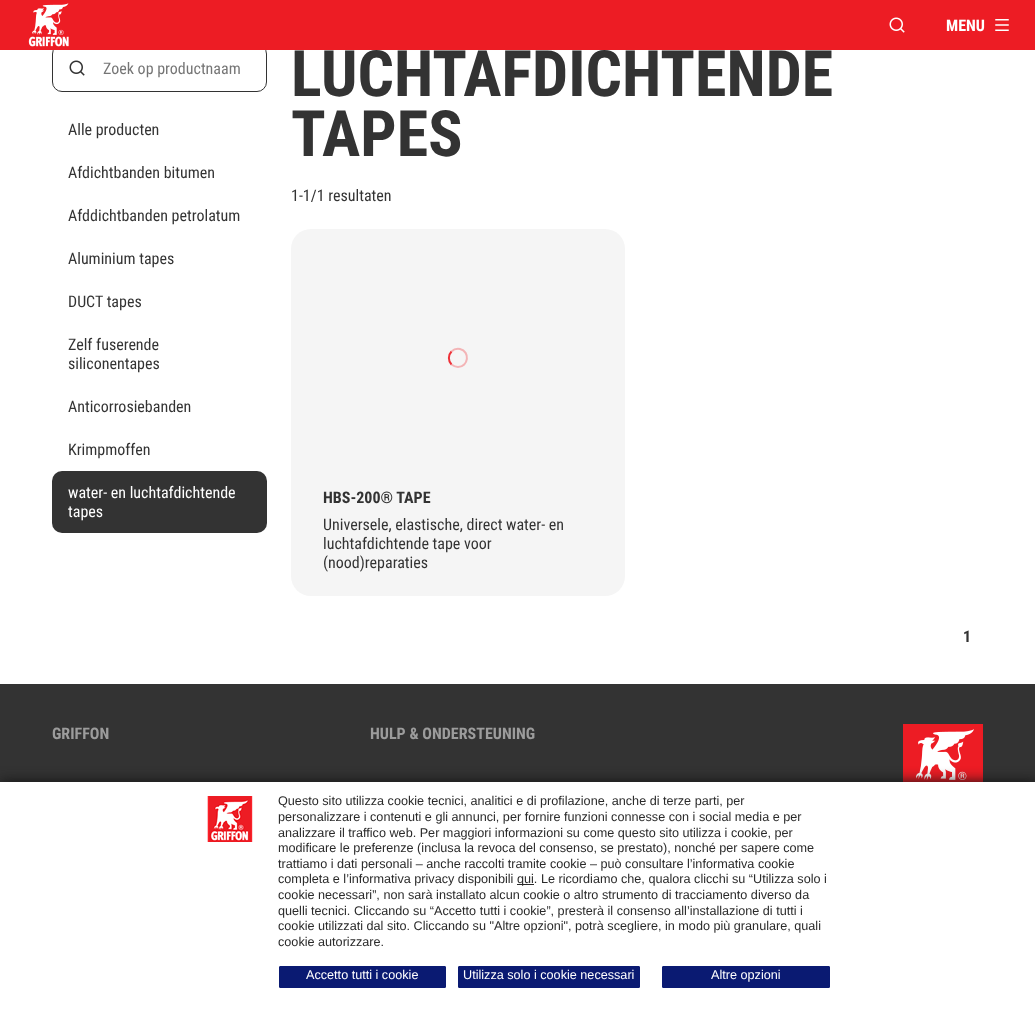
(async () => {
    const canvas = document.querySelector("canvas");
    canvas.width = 1035;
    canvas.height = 1012;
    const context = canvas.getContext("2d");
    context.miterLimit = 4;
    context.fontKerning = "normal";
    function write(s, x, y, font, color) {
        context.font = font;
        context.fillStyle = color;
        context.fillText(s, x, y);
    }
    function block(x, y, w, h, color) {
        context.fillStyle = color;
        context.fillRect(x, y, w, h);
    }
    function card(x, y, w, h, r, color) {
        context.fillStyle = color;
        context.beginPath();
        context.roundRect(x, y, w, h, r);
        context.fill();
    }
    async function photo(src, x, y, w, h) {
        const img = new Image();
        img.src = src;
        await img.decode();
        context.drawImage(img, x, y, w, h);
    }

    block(0, 0, 1035, 1012, "rgb(255, 255, 255)");
    context.beginPath();
    context.roundRect(52.5, 44.5, 214, 47, 9.5);
    context.strokeStyle = "rgb(51, 51, 51)";
    context.stroke();
    write("LUCHTAFDICHTENDE", 291, 96, "bold 64px Roboto Condensed", "rgb(51, 51, 51)");
    block(0, 0, 1035, 50, "rgb(237, 28, 36)");
    await photo("media/1.png", 28, 3, 41, 44);
    await photo("media/2.png", 889, 17, 16, 16);
    write("MENU", 946, 31, "bold 16px Roboto Condensed", "rgb(255, 255, 255)");
    await photo("media/3.png", 995, 19, 14, 12);
    await photo("media/4.png", 69, 60, 16, 16);
    write("Zoek op productnaam", 103, 74, "16px Roboto Condensed", "rgb(117, 117, 117)");
    write("Alle producten", 68, 135, "16px Roboto Condensed", "rgb(51, 51, 51)");
    write("Afdichtbanden bitumen", 68, 178, "16px Roboto Condensed", "rgb(51, 51, 51)");
    write("Afddichtbanden petrolatum", 68, 221, "16px Roboto Condensed", "rgb(51, 51, 51)");
    write("Aluminium tapes", 68, 264, "16px Roboto Condensed", "rgb(51, 51, 51)");
    write("DUCT tapes", 68, 307, "16px Roboto Condensed", "rgb(51, 51, 51)");
    write("Zelf fuserende", 68, 350, "16px Roboto Condensed", "rgb(51, 51, 51)");
    write("siliconentapes", 68, 369, "16px Roboto Condensed", "rgb(51, 51, 51)");
    write("Anticorrosiebanden", 68, 412, "16px Roboto Condensed", "rgb(51, 51, 51)");
    write("Krimpmoffen", 68, 455, "16px Roboto Condensed", "rgb(51, 51, 51)");
    card(52, 471, 215, 62, 10, "rgb(51, 51, 51)");
    write("water- en luchtafdichtende", 68, 498, "16px Roboto Condensed", "rgb(255, 255, 255)");
    write("tapes", 68, 517, "16px Roboto Condensed", "rgb(255, 255, 255)");
    write("TAPES", 291, 156, "bold 64px Roboto Condensed", "rgb(51, 51, 51)");
    write("1-1/1 resultaten", 291, 201, "16px Roboto Condensed", "rgb(51, 51, 51)");
    card(291, 229, 334, 367, 20, "rgb(245, 245, 245)");
    context.beginPath();
    context.moveTo(451.5, 351.5);
    context.bezierCurveTo(453.5, 349.5, 457, 348.5, 460, 349);
    context.bezierCurveTo(470.5, 351.5, 468.5, 367, 458, 367);
    context.bezierCurveTo(455.5, 367, 453.5, 366, 451.5, 364.5);
    context.strokeStyle = "rgb(243, 180, 182)";
    context.lineWidth = 2;
    context.stroke();
    context.beginPath();
    context.moveTo(451.5, 364.5);
    context.bezierCurveTo(448, 361, 448, 355, 451.5, 351.5);
    context.strokeStyle = "rgba(237, 28, 36, 0.9)";
    context.stroke();
    write("HBS-200® TAPE", 323, 503, "bold 16px Roboto Condensed", "rgb(51, 51, 51)");
    write("Universele, elastische, direct water- en", 323, 530, "16px Roboto Condensed", "rgb(51, 51, 51)");
    write("luchtafdichtende tape voor", 323, 549, "16px Roboto Condensed", "rgb(51, 51, 51)");
    write("(nood)reparaties", 323, 568, "16px Roboto Condensed", "rgb(51, 51, 51)");
    write("1", 963, 642, "bold 16px Roboto Condensed", "rgb(51, 51, 51)");
    block(0, 684, 1035, 98, "rgb(51, 51, 51)");
    write("GRIFFON", 52, 739, "bold 16px Roboto Condensed", "rgb(156, 156, 156)");
    write("HULP & ONDERSTEUNING", 370, 739, "bold 16px Roboto Condensed", "rgb(156, 156, 156)");
    await photo("media/5.png", 903, 724, 80, 58);
    context.fillStyle = "rgb(18, 18, 18)";
    context.filter = "blur(7px)";
    context.beginPath();
    context.rect(0, 782, 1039, 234);
    context.fill();
    context.filter = "none";
    block(0, 782, 1035, 230, "rgb(255, 255, 255)");
    await photo("media/6.png", 207, 796, 46, 46);
    write("Questo sito utilizza cookie tecnici, analitici e di profilazione, anche di terze parti, per", 278, 805, "12.65px Liberation Sans", "rgb(42, 42, 42)");
    write("personalizzare i contenuti e gli annunci, per fornire funzioni connesse con i social media e per", 278, 821, "12.65px Liberation Sans", "rgb(42, 42, 42)");
    write("analizzare il traffico web. Per maggiori informazioni su come questo sito utilizza i cookie, per", 278, 837, "12.65px Liberation Sans", "rgb(42, 42, 42)");
    write("modificare le preferenze (inclusa la revoca del consenso, se prestato), nonché per sapere come", 278, 852, "12.65px Liberation Sans", "rgb(42, 42, 42)");
    write("trattiamo i dati personali – anche raccolti tramite cookie – può consultare l’informativa cookie", 278, 868, "12.65px Liberation Sans", "rgb(42, 42, 42)");
    write("completa e l’informativa privacy disponibili", 278, 883, "12.65px Liberation Sans", "rgb(42, 42, 42)");
    block(517, 884, 17, 1, "rgb(42, 42, 42)");
    write("qui. Le ricordiamo che, qualora clicchi su “Utilizza solo i", 517, 883, "12.65px Liberation Sans", "rgb(42, 42, 42)");
    write("cookie necessari”, non sarà installato alcun cookie o altro strumento di tracciamento diverso da", 278, 899, "12.65px Liberation Sans", "rgb(42, 42, 42)");
    write("quelli tecnici. Cliccando su “Accetto tutti i cookie”, presterà il consenso all’installazione di tutti i", 278, 915, "12.65px Liberation Sans", "rgb(42, 42, 42)");
    write("cookie utilizzati dal sito. Cliccando su \"Altre opzioni\", potrà scegliere, in modo più granulare, quali", 278, 930, "12.65px Liberation Sans", "rgb(42, 42, 42)");
    write("cookie autorizzare.", 278, 946, "12.65px Liberation Sans", "rgb(42, 42, 42)");
    context.fillStyle = "rgb(10, 26, 114)";
    context.beginPath();
    context.roundRect(279.5, 966.5, 166, 21, 0.5);
    context.fill();
    context.strokeStyle = "rgb(10, 26, 114)";
    context.lineWidth = 1;
    context.stroke();
    write("Accetto tutti i cookie", 306, 979, "12.65px Liberation Sans", "rgb(255, 255, 255)");
    context.fillStyle = "rgb(10, 26, 114)";
    context.beginPath();
    context.roundRect(458.5, 966.5, 181, 21, 0.5);
    context.fill();
    context.stroke();
    write("Utilizza solo i cookie necessari", 463, 979, "12.65px Liberation Sans", "rgb(255, 255, 255)");
    context.fillStyle = "rgb(10, 26, 114)";
    context.beginPath();
    context.roundRect(662.5, 966.5, 167, 21, 0.5);
    context.fill();
    context.stroke();
    write("Altre opzioni", 711, 979, "12.65px Liberation Sans", "rgb(255, 255, 255)");
})();
